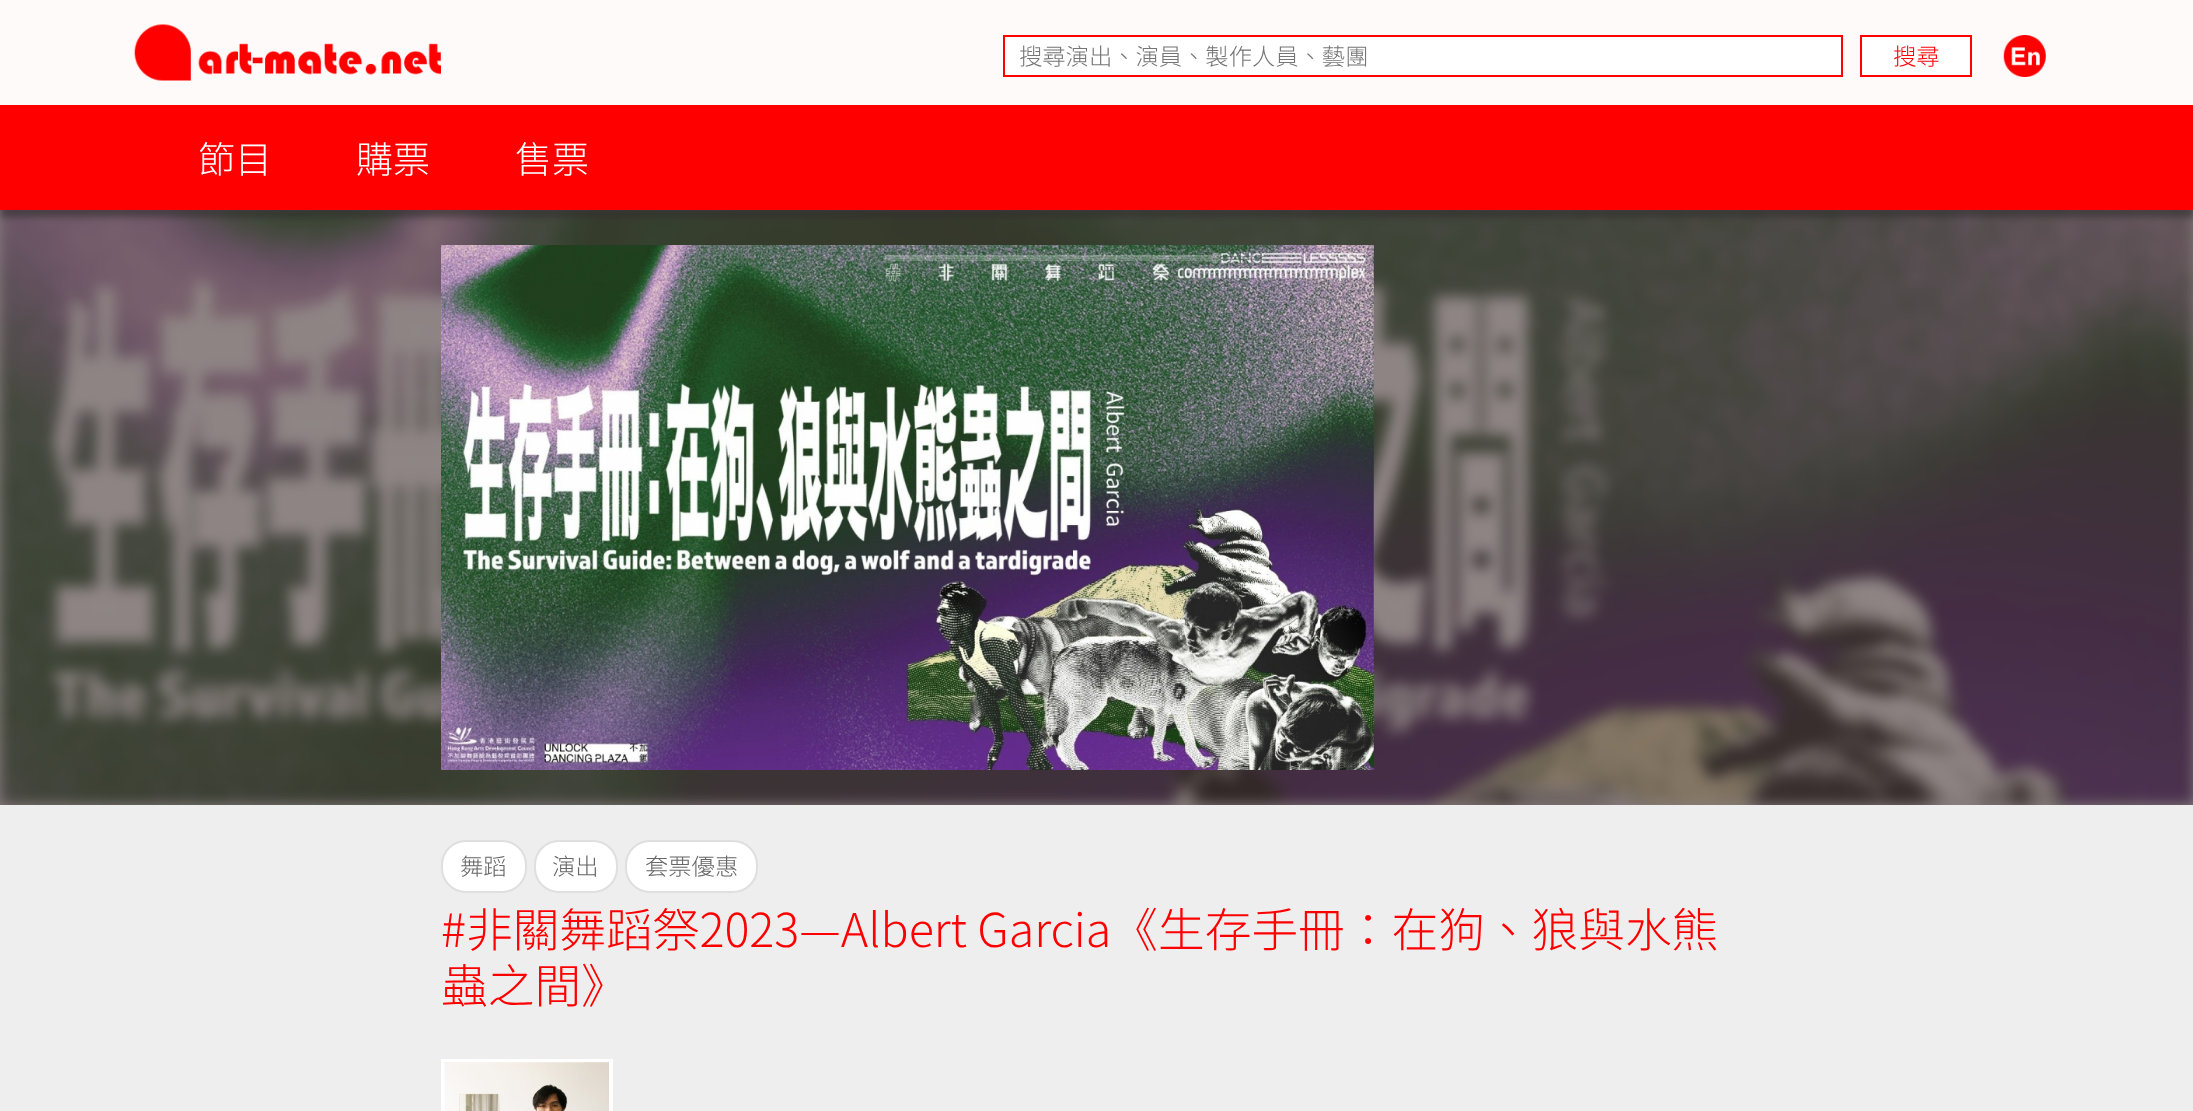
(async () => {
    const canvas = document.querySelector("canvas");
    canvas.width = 2193;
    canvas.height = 1111;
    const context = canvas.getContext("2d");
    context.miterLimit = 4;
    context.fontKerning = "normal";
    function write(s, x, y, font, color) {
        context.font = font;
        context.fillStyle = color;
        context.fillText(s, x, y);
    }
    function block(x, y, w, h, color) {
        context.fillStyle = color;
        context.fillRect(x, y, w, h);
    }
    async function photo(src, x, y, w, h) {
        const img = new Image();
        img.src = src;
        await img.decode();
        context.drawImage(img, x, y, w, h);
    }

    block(0, 0, 2193, 1111, "rgb(238, 238, 238)");
    block(0, 210, 2193, 595, "rgb(136, 126, 126)");
    block(0, 0, 2193, 105, "rgb(255, 250, 250)");
    await photo("media/1.png", 134, 24, 307, 57);
    context.fillStyle = "rgb(255, 255, 255)";
    context.beginPath();
    context.rect(1004, 36, 838, 40);
    context.fill();
    context.strokeStyle = "rgb(255, 0, 0)";
    context.lineWidth = 2;
    context.stroke();
    write("搜尋演出、演員、製作人員、藝團", 1019, 65, "100 23.3px Noto Sans HK", "rgb(117, 117, 117)");
    context.fillStyle = "rgb(255, 255, 255)";
    context.beginPath();
    context.rect(1861, 36, 110, 40);
    context.fill();
    context.stroke();
    write("搜尋", 1893, 65, "100 23.3px Noto Sans HK", "rgb(255, 0, 0)");
    await photo("media/2.png", 2003, 35, 43, 42);
    await photo("media/3.png", 0, 210, 2193, 595);
    context.fillStyle = "rgba(0, 0, 0, 0.4)";
    context.filter = "blur(3.5px)";
    context.beginPath();
    context.rect(0, 112, 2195, 105);
    context.fill();
    context.filter = "none";
    block(0, 105, 2193, 105, "rgb(255, 0, 0)");
    write("節目", 198, 173, "100 37px Noto Sans HK", "rgb(255, 255, 255)");
    write("購票", 356, 173, "100 37px Noto Sans HK", "rgb(255, 255, 255)");
    write("售票", 515, 173, "100 37px Noto Sans HK", "rgb(255, 255, 255)");
    await photo("media/4.png", 441, 245, 933, 525);
    context.beginPath();
    context.roundRect(442, 841, 84, 51, 24);
    context.fill();
    context.strokeStyle = "rgb(223, 223, 223)";
    context.stroke();
    write("舞蹈", 460, 875, "100 23.3px Noto Sans HK", "rgb(102, 102, 102)");
    context.fillStyle = "rgb(255, 255, 255)";
    context.beginPath();
    context.roundRect(535, 841, 82, 51, 24);
    context.fill();
    context.stroke();
    write("演出", 552, 875, "100 23.3px Noto Sans HK", "rgb(102, 102, 102)");
    context.fillStyle = "rgb(255, 255, 255)";
    context.beginPath();
    context.roundRect(626, 841, 131, 51, 24);
    context.fill();
    context.stroke();
    write("套票優惠", 645, 875, "100 23.3px Noto Sans HK", "rgb(102, 102, 102)");
    write("#非關舞蹈祭2023—Albert Garcia《生存手冊：在狗、狼與水熊", 441, 947, "100 46.7px Noto Sans HK", "rgb(255, 0, 0)");
    write("蟲之間》", 441, 1003, "100 46.7px Noto Sans HK", "rgb(255, 0, 0)");
    block(441, 1059, 172, 52, "rgb(255, 255, 255)");
    await photo("media/5.png", 444, 1062, 165, 49);
})();
